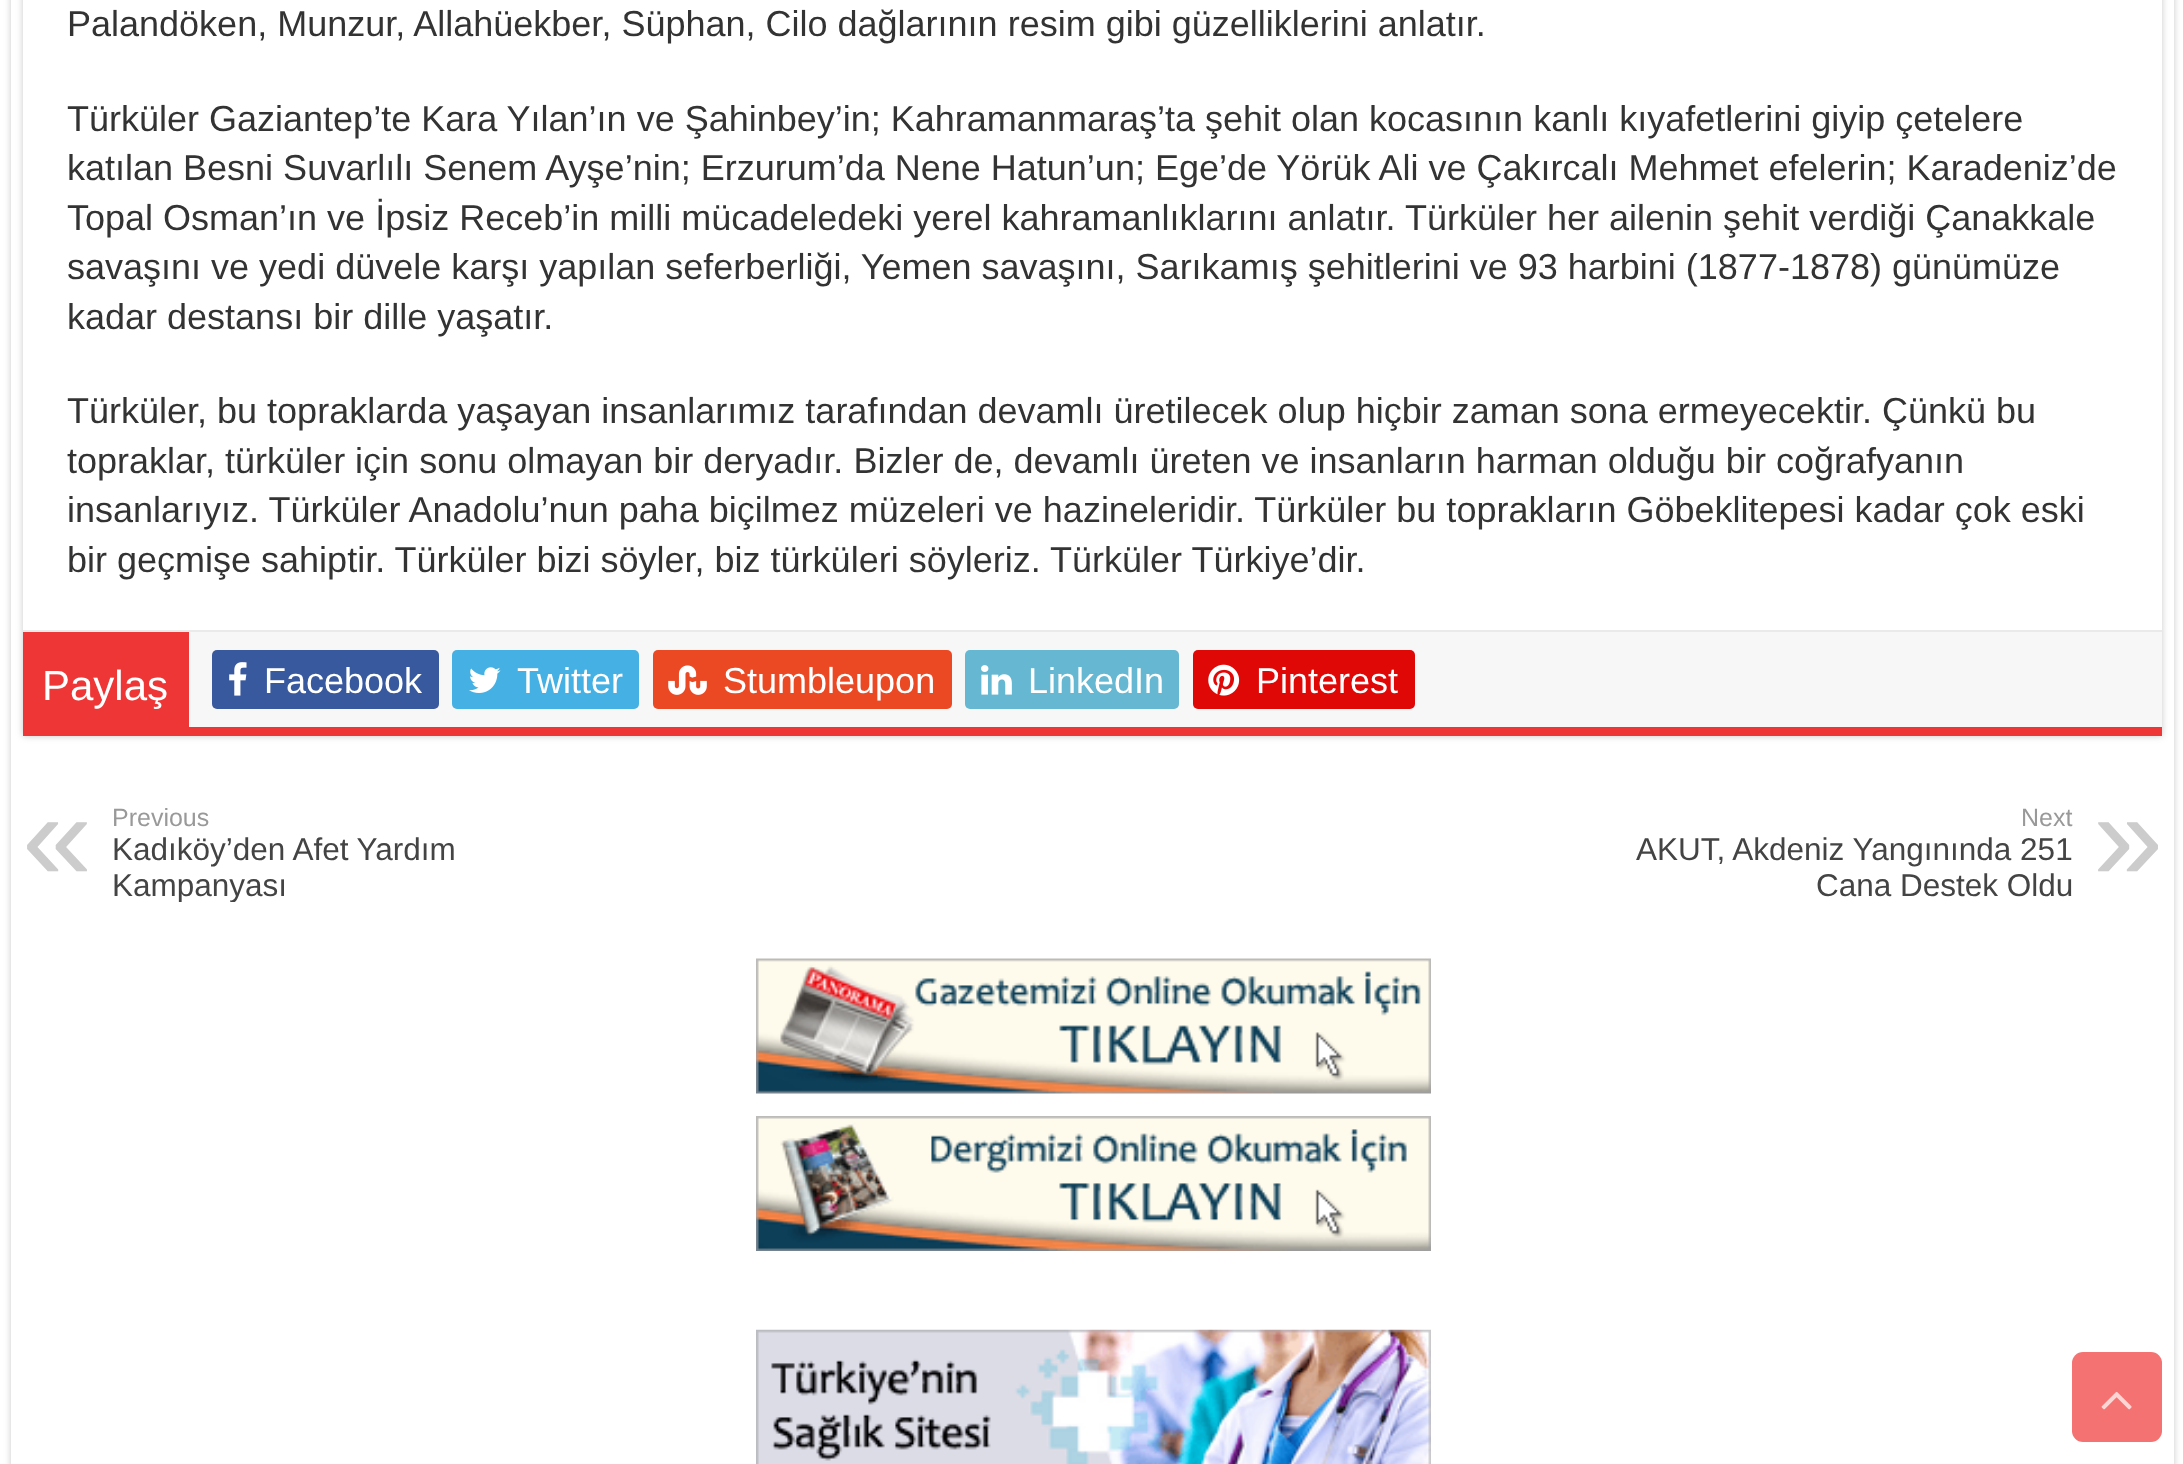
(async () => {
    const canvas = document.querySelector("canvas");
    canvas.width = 2183;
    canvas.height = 1464;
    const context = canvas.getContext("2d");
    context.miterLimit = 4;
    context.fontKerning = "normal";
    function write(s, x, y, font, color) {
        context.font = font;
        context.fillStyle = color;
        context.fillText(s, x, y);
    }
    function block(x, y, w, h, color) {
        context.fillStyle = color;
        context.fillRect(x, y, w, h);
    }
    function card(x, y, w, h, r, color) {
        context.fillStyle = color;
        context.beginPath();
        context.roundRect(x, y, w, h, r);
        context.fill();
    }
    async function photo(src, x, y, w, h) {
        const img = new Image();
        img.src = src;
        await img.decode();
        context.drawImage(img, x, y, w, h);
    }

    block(0, 0, 2183, 1464, "rgb(255, 255, 255)");
    context.fillStyle = "rgb(202, 202, 202)";
    context.filter = "blur(3.5px)";
    context.beginPath();
    context.rect(11, -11, 2163, 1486);
    context.fill();
    context.filter = "none";
    block(11, 0, 2163, 1464, "rgb(255, 255, 255)");
    context.fillStyle = "rgb(202, 202, 202)";
    context.filter = "blur(3.5px)";
    context.beginPath();
    context.rect(23, -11, 2139, 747);
    context.fill();
    context.filter = "none";
    block(23, 0, 2139, 630, "rgb(255, 255, 255)");
    block(23, 727, 2139, 9, "rgb(239, 54, 54)");
    write("Palandöken, Munzur, Allahüekber, Süphan, Cilo dağlarının resim gibi güzelliklerini anlatır.", 67, 36, "36px Liberation Sans", "rgb(51, 51, 51)");
    write("Türküler Gaziantep’te Kara Yılan’ın ve Şahinbey’in; Kahramanmaraş’ta şehit olan kocasının kanlı kıyafetlerini giyip çetelere", 67, 131, "36px Liberation Sans", "rgb(51, 51, 51)");
    write("katılan Besni Suvarlılı Senem Ayşe’nin; Erzurum’da Nene Hatun’un; Ege’de Yörük Ali ve Çakırcalı Mehmet efelerin; Karadeniz’de", 67, 180, "36px Liberation Sans", "rgb(51, 51, 51)");
    write("Topal Osman’ın ve İpsiz Receb’in milli mücadeledeki yerel kahramanlıklarını anlatır. Türküler her ailenin şehit verdiği Çanakkale", 67, 230, "36px Liberation Sans", "rgb(51, 51, 51)");
    write("savaşını ve yedi düvele karşı yapılan seferberliği, Yemen savaşını, Sarıkamış şehitlerini ve 93 harbini (1877-1878) günümüze", 67, 279, "36px Liberation Sans", "rgb(51, 51, 51)");
    write("kadar destansı bir dille yaşatır.", 67, 329, "36px Liberation Sans", "rgb(51, 51, 51)");
    write("Türküler, bu topraklarda yaşayan insanlarımız tarafından devamlı üretilecek olup hiçbir zaman sona ermeyecektir. Çünkü bu", 67, 423, "36px Liberation Sans", "rgb(51, 51, 51)");
    write("topraklar, türküler için sonu olmayan bir deryadır. Bizler de, devamlı üreten ve insanların harman olduğu bir coğrafyanın", 67, 473, "36px Liberation Sans", "rgb(51, 51, 51)");
    write("insanlarıyız. Türküler Anadolu’nun paha biçilmez müzeleri ve hazineleridir. Türküler bu toprakların Göbeklitepesi kadar çok eski", 67, 522, "36px Liberation Sans", "rgb(51, 51, 51)");
    write("bir geçmişe sahiptir. Türküler bizi söyler, biz türküleri söyleriz. Türküler Türkiye’dir.", 67, 572, "36px Liberation Sans", "rgb(51, 51, 51)");
    block(189, 632, 1973, 95, "rgb(247, 247, 247)");
    block(23, 630, 2139, 2, "rgb(234, 234, 234)");
    block(23, 632, 166, 95, "rgb(239, 54, 54)");
    write("Paylaş", 42, 700, "42px Liberation Sans", "rgb(255, 255, 255)");
    card(212, 650, 227, 59, 5, "rgb(57, 89, 159)");
    await photo("media/1.png", 229, 662, 18, 34);
    write("Facebook", 264, 693, "36px Liberation Sans", "rgb(255, 255, 255)");
    card(452, 650, 187, 59, 5, "rgb(69, 176, 227)");
    await photo("media/2.png", 469, 667, 32, 26);
    write("Twitter", 517, 693, "36px Liberation Sans", "rgb(255, 255, 255)");
    card(653, 650, 299, 59, 5, "rgb(235, 73, 36)");
    await photo("media/3.png", 668, 665, 39, 30);
    write("Stumbleupon", 723, 693, "36px Liberation Sans", "rgb(255, 255, 255)");
    card(965, 650, 214, 59, 5, "rgb(101, 183, 210)");
    await photo("media/4.png", 981, 665, 31, 30);
    write("LinkedIn", 1028, 693, "36px Liberation Sans", "rgb(255, 255, 255)");
    card(1193, 650, 222, 59, 5, "rgb(224, 7, 7)");
    await photo("media/5.png", 1208, 664, 32, 32);
    write("Pinterest", 1256, 693, "36px Liberation Sans", "rgb(255, 255, 255)");
    write("Previous", 112, 826, "25px Liberation Sans", "rgb(153, 153, 153)");
    write("«", 22, 880, "126px Liberation Sans", "rgb(204, 204, 204)");
    write("Kadıköy’den Afet Yardım", 112, 860, "31.5px Liberation Sans", "rgb(68, 68, 68)");
    context.save();
    context.beginPath();
    context.rect(23, 803, 2139, 99);
    context.clip();
    write("Kampanyası", 112, 896, "31.5px Liberation Sans", "rgb(68, 68, 68)");
    context.restore();
    write("Next", 2021, 826, "25px Liberation Sans", "rgb(153, 153, 153)");
    write("AKUT, Akdeniz Yangınında 251", 1636, 860, "31.5px Liberation Sans", "rgb(68, 68, 68)");
    write("»", 2093, 880, "126px Liberation Sans", "rgb(204, 204, 204)");
    write("Cana Destek Oldu", 1816, 896, "31.5px Liberation Sans", "rgb(68, 68, 68)");
    await photo("media/6.png", 756, 958, 675, 136);
    await photo("media/7.png", 756, 1116, 675, 135);
    await photo("media/8.png", 756, 1329, 675, 135);
    card(2072, 1352, 90, 90, 11, "rgb(244, 114, 114)");
    await photo("media/9.png", 2101, 1391, 31, 19);
})();
